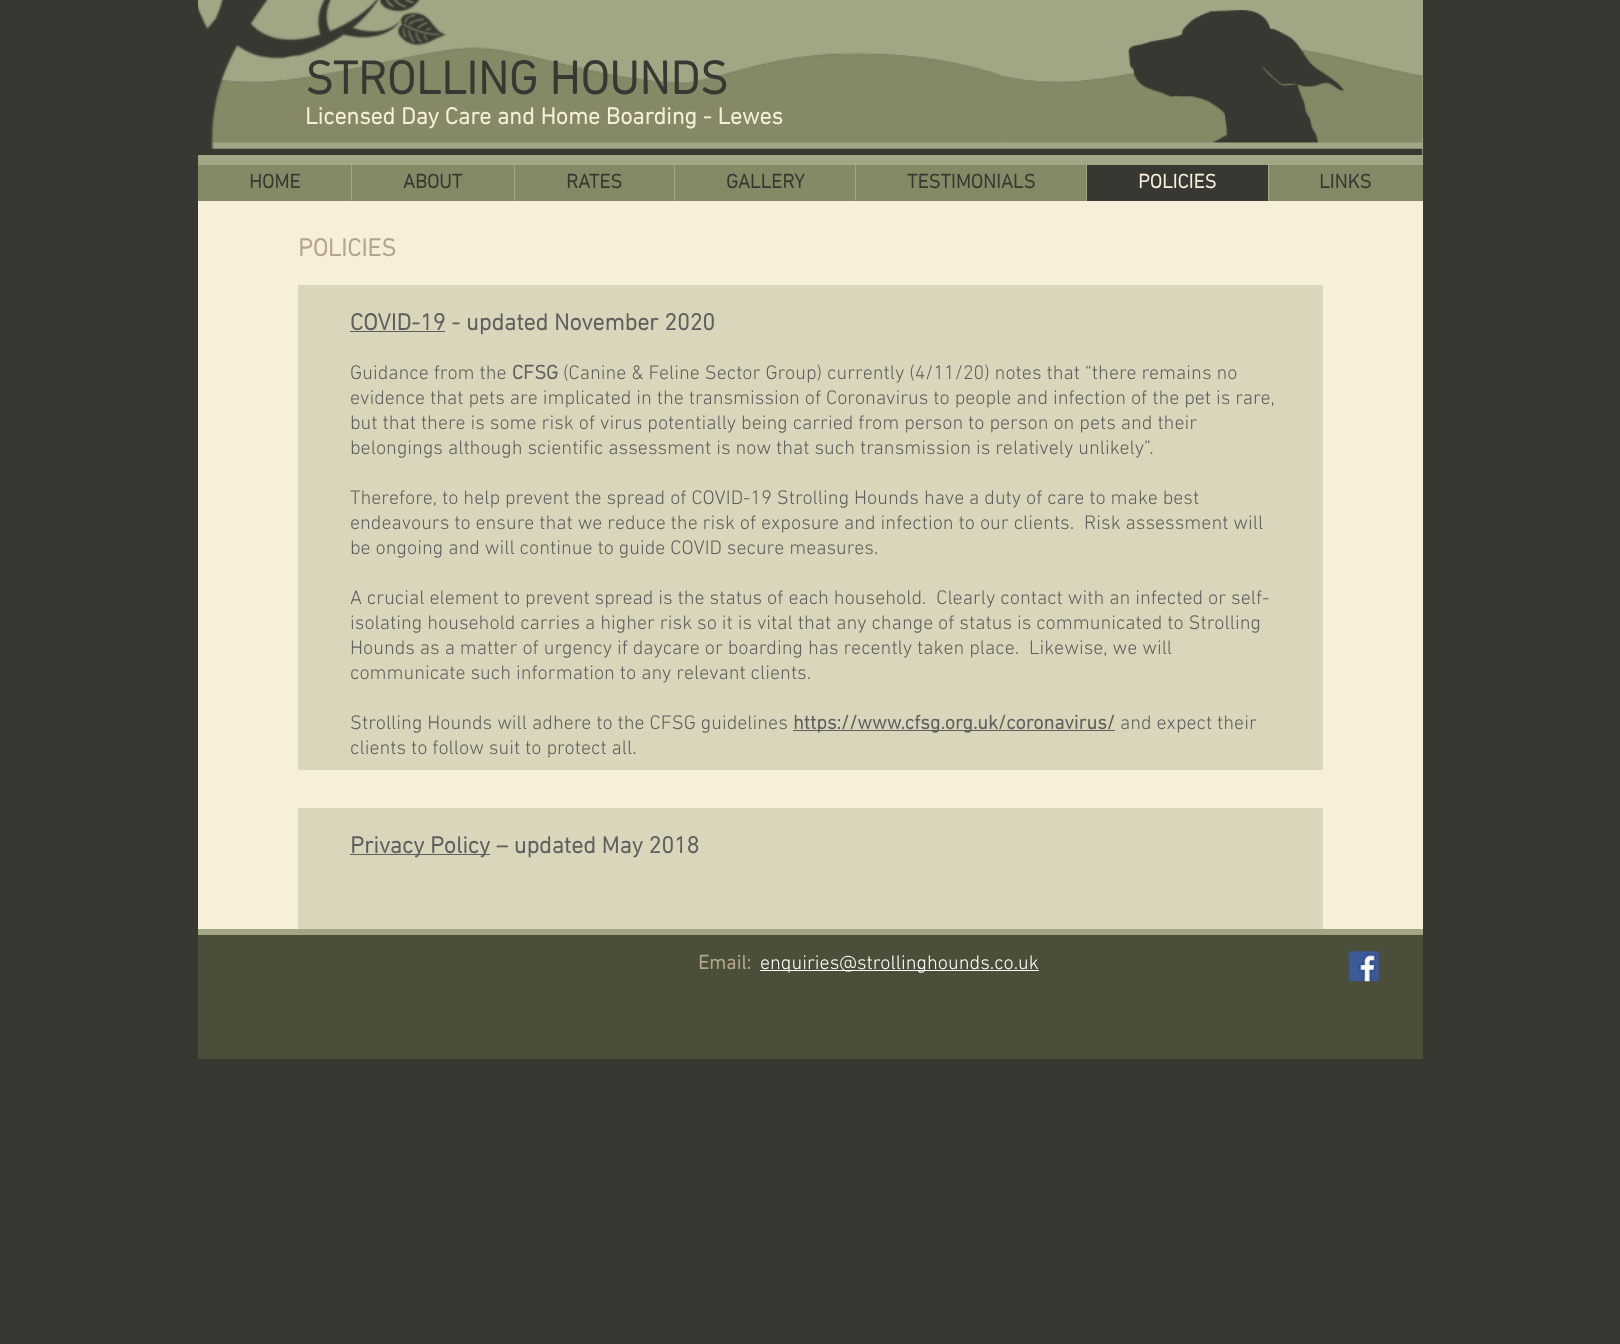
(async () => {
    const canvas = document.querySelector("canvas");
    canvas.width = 1620;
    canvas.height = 1344;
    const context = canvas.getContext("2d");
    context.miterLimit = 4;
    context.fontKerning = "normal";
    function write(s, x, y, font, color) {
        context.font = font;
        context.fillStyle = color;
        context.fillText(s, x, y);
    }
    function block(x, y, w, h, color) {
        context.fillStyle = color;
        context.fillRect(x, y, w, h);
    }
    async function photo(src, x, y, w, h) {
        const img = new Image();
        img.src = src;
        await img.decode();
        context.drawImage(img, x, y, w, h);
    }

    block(0, 0, 1620, 1344, "rgb(55, 56, 50)");
    block(198, 0, 1225, 165, "rgb(162, 166, 133)");
    await photo("media/1.png", 198, 0, 1225, 155);
    write("STROLLING HOUNDS", 305, 94, "bold 47.5px 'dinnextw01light'", "rgb(55, 56, 50)");
    write("Licensed Day Care and Home Boarding - Lewes", 305, 124, "bold 23.75px 'dinnextw01light'", "rgb(247, 239, 218)");
    block(198, 165, 1225, 36, "rgb(133, 137, 102)");
    write("HOME", 249, 188, "bold 20px 'dinnextw01light'", "rgb(55, 56, 50)");
    block(351, 165, 1, 36, "rgb(162, 166, 133)");
    write("ABOUT", 403, 188, "bold 20px 'dinnextw01light'", "rgb(55, 56, 50)");
    block(514, 165, 1, 36, "rgb(162, 166, 133)");
    write("RATES", 566, 188, "bold 20px 'dinnextw01light'", "rgb(55, 56, 50)");
    block(674, 165, 1, 36, "rgb(162, 166, 133)");
    write("GALLERY", 726, 188, "bold 20px 'dinnextw01light'", "rgb(55, 56, 50)");
    block(855, 165, 1, 36, "rgb(162, 166, 133)");
    write("TESTIMONIALS", 907, 188, "bold 20px 'dinnextw01light'", "rgb(55, 56, 50)");
    block(1087, 165, 181, 36, "rgb(55, 56, 50)");
    block(1086, 165, 1, 36, "rgb(162, 166, 133)");
    write("POLICIES", 1138, 188, "bold 20px 'dinnextw01light'", "rgb(247, 239, 218)");
    block(1268, 165, 1, 36, "rgb(162, 166, 133)");
    write("LINKS", 1319, 188, "bold 20px 'dinnextw01light'", "rgb(55, 56, 50)");
    block(198, 201, 1225, 728, "rgb(247, 239, 218)");
    write("POLICIES", 298, 256, "bold 25px 'dinnextw01light'", "rgb(180, 166, 139)");
    block(298, 285, 1025, 485, "rgb(218, 214, 187)");
    block(350, 331, 95, 1, "rgb(96, 94, 94)");
    write("COVID-19 - updated November 2020", 350, 330, "bold 23.75px 'dinnextw01light'", "rgb(96, 94, 94)");
    write("Guidance from the", 350, 379, "300 20px 'dinnextw01light'", "rgb(96, 94, 94)");
    write("CFSG", 512, 379, "bold 20px 'dinnextw01light'", "rgb(96, 94, 94)");
    write("(Canine & Feline Sector Group) currently (4/11/20) notes that “there remains no", 563, 379, "300 20px 'dinnextw01light'", "rgb(96, 94, 94)");
    write("evidence that pets are implicated in the transmission of Coronavirus to people and infection of the pet is rare,", 350, 404, "300 20px 'dinnextw01light'", "rgb(96, 94, 94)");
    write("but that there is some risk of virus potentially being carried from person to person on pets and their", 350, 429, "300 20px 'dinnextw01light'", "rgb(96, 94, 94)");
    write("belongings although scientific assessment is now that such transmission is relatively unlikely”.", 350, 454, "300 20px 'dinnextw01light'", "rgb(96, 94, 94)");
    write("Therefore, to help prevent the spread of COVID-19 Strolling Hounds have a duty of care to make best", 350, 504, "300 20px 'dinnextw01light'", "rgb(96, 94, 94)");
    write("endeavours to ensure that we reduce the risk of exposure and infection to our clients.  Risk assessment will", 350, 529, "300 20px 'dinnextw01light'", "rgb(96, 94, 94)");
    write("be ongoing and will continue to guide COVID secure measures.", 350, 554, "300 20px 'dinnextw01light'", "rgb(96, 94, 94)");
    write("A crucial element to prevent spread is the status of each household.  Clearly contact with an infected or self-", 350, 604, "300 20px 'dinnextw01light'", "rgb(96, 94, 94)");
    write("isolating household carries a higher risk so it is vital that any change of status is communicated to Strolling", 350, 629, "300 20px 'dinnextw01light'", "rgb(96, 94, 94)");
    write("Hounds as a matter of urgency if daycare or boarding has recently taken place.  Likewise, we will", 350, 654, "300 20px 'dinnextw01light'", "rgb(96, 94, 94)");
    write("communicate such information to any relevant clients.", 350, 679, "300 20px 'dinnextw01light'", "rgb(96, 94, 94)");
    write("Strolling Hounds will adhere to the CFSG guidelines", 350, 729, "300 20px 'dinnextw01light'", "rgb(96, 94, 94)");
    block(793, 730, 322, 1, "rgb(96, 94, 94)");
    write("https://www.cfsg.org.uk/coronavirus/", 793, 729, "bold 20px 'dinnextw01light'", "rgb(96, 94, 94)");
    write("and expect their", 1120, 729, "300 20px 'dinnextw01light'", "rgb(96, 94, 94)");
    write("clients to follow suit to protect all.", 350, 754, "300 20px 'dinnextw01light'", "rgb(96, 94, 94)");
    block(298, 808, 1025, 121, "rgb(218, 214, 188)");
    block(350, 854, 140, 1, "rgb(96, 94, 94)");
    write("Privacy Policy – updated May 2018", 350, 853, "bold 23.75px 'dinnextw01light'", "rgb(96, 94, 94)");
    block(198, 935, 1225, 124, "rgb(75, 78, 57)");
    block(198, 929, 1225, 6, "rgb(162, 166, 133)");
    write("Email:", 698, 969, "bold 20px 'dinnextw01light'", "rgb(180, 166, 139)");
    block(760, 970, 279, 1, "rgb(255, 255, 255)");
    write("enquiries@strollinghounds.co.uk", 760, 969, "300 20px 'dinnextw01light'", "rgb(255, 255, 255)");
    await photo("media/2.png", 1348, 951, 31, 31);
})();
